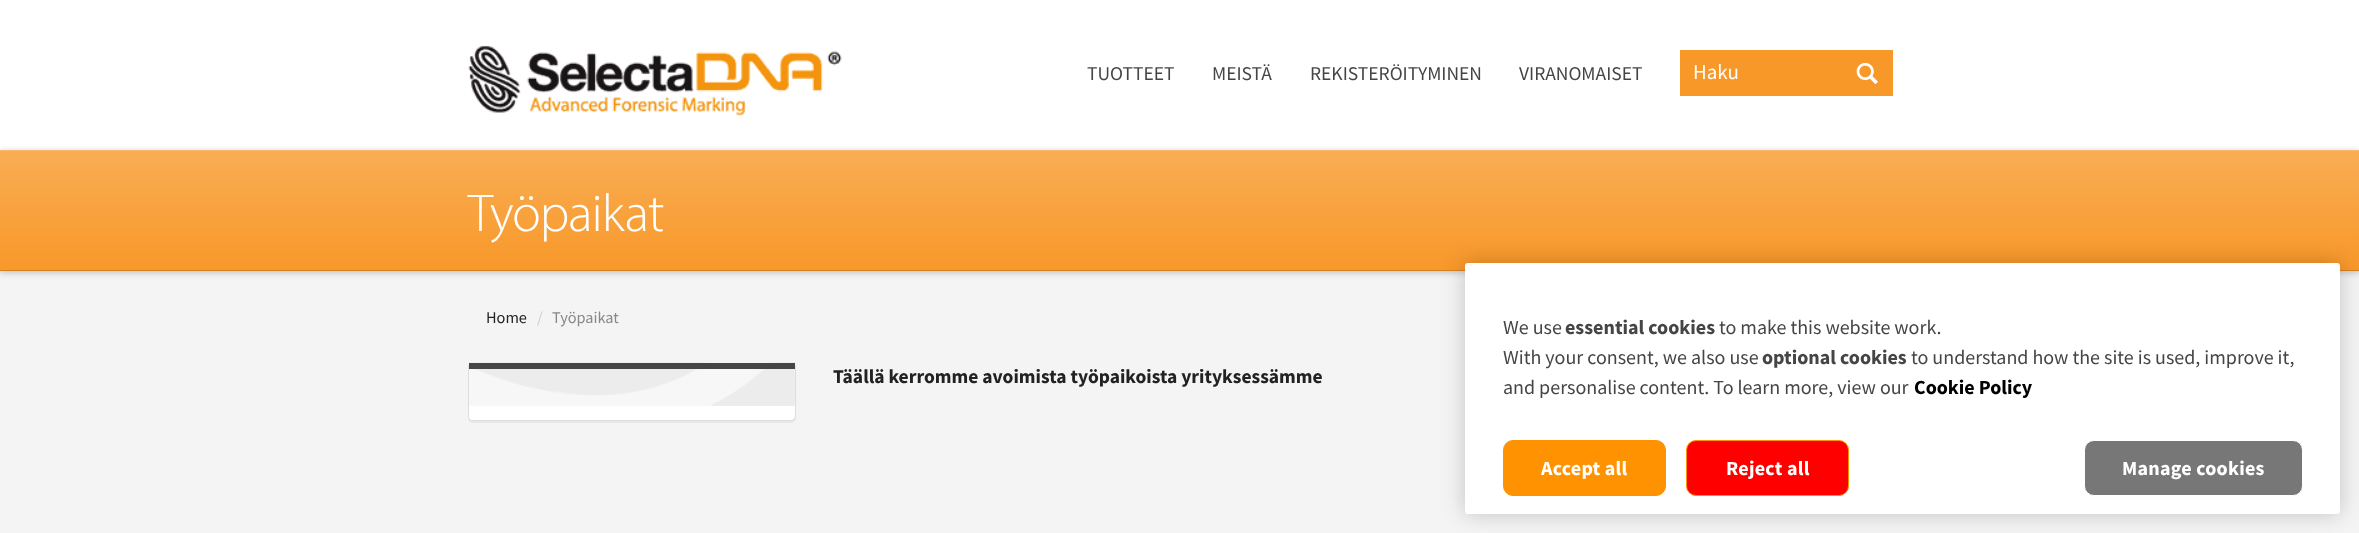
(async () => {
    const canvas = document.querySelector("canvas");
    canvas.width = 2359;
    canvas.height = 533;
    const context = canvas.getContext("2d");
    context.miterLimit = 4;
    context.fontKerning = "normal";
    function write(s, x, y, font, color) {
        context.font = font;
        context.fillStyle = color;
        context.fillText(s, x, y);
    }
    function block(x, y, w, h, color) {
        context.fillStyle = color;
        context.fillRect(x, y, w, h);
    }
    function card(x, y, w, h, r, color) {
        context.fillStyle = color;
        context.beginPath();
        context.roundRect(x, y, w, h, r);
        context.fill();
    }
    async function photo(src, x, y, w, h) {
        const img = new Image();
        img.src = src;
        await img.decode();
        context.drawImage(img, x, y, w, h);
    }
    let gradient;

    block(0, 0, 2359, 533, "rgb(255, 255, 255)");
    await photo("media/1.png", 468, 45, 374, 71);
    write("TUOTTEET", 1087, 80, "19.5px Source Sans Pro", "rgb(69, 69, 69)");
    write("MEISTÄ", 1212, 80, "19.5px Source Sans Pro", "rgb(69, 69, 69)");
    write("REKISTERÖITYMINEN", 1310, 80, "19.5px Source Sans Pro", "rgb(69, 69, 69)");
    write("VIRANOMAISET", 1519, 80, "19.5px Source Sans Pro", "rgb(69, 69, 69)");
    block(1680, 50, 213, 46, "rgb(248, 152, 41)");
    write("Haku", 1693, 79, "21px Source Sans Pro", "rgb(255, 255, 255)");
    await photo("media/2.png", 1856, 62, 22, 23);
    block(0, 271, 2359, 262, "rgb(244, 244, 244)");
    context.fillStyle = "rgba(0, 0, 0, 0.2)";
    context.filter = "blur(3px)";
    context.beginPath();
    context.rect(0, 151, 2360, 122);
    context.fill();
    context.filter = "none";
    gradient = context.createLinearGradient(1180, 150, 1180, 271);
    gradient.addColorStop(0, "rgb(249, 173, 84)");
    gradient.addColorStop(1, "rgb(248, 152, 41)");
    context.fillStyle = gradient;
    context.fillRect(0, 151, 2359, 119);
    block(0, 270, 2359, 1, "rgb(211, 129, 35)");
    block(0, 150, 2359, 1, "rgb(250, 185, 110)");
    context.letterSpacing = "-1px";
    write("Työpaikat", 468, 231, "300 53.5px Myriad", "rgb(255, 255, 255)");
    context.letterSpacing = "0px";
    write("Home", 486, 323, "16.25px Source Sans Pro", "rgb(34, 34, 34)");
    write("/", 537, 323, "16.25px Source Sans Pro", "rgb(204, 204, 204)");
    write("Työpaikat", 552, 323, "16.25px Source Sans Pro", "rgb(136, 136, 136)");
    context.fillStyle = "rgba(0, 0, 0, 0.05)";
    context.filter = "blur(0.5px)";
    context.beginPath();
    context.roundRect(468, 364, 328, 59, 5);
    context.fill();
    context.filter = "none";
    card(468, 363, 328, 58, 5, "rgb(255, 255, 255)");
    context.fillStyle = "rgb(221, 221, 221)";
    context.beginPath();
    context.moveTo(472, 362);
    context.lineTo(791, 362);
    context.bezierCurveTo(794, 362, 796, 365, 796, 368);
    context.lineTo(796, 416);
    context.bezierCurveTo(796, 419, 794, 421, 791, 421);
    context.lineTo(472, 421);
    context.bezierCurveTo(470, 421, 468, 419, 468, 416);
    context.lineTo(468, 368);
    context.bezierCurveTo(468, 365, 470, 362, 472, 362);
    context.closePath();
    context.moveTo(472, 362);
    context.lineTo(791, 362);
    context.bezierCurveTo(793, 362, 795, 365, 795, 368);
    context.lineTo(795, 416);
    context.bezierCurveTo(795, 418, 793, 420, 791, 420);
    context.lineTo(472, 420);
    context.bezierCurveTo(470, 420, 469, 418, 469, 416);
    context.lineTo(469, 368);
    context.bezierCurveTo(469, 365, 470, 362, 472, 362);
    context.closePath();
    context.fill("evenodd");
    block(469, 369, 326, 37, "rgb(247, 247, 247)");
    await photo("media/3.png", 469, 362, 326, 44);
    block(469, 363, 326, 6, "rgb(69, 69, 69)");
    write("Täällä kerromme avoimista työpaikoista yrityksessämme", 833, 383, "bold 19.5px Source Sans Pro", "rgb(34, 34, 34)");
    context.fillStyle = "rgba(0, 0, 0, 0.2)";
    context.filter = "blur(11px)";
    context.beginPath();
    context.roundRect(1465, 263, 875, 251, 3);
    context.fill();
    context.filter = "none";
    card(1465, 263, 875, 251, 3, "rgb(255, 255, 255)");
    write("We use", 1503, 334, "20px Source Sans Pro", "rgb(69, 69, 69)");
    write("essential cookies", 1565, 334, "bold 20px Source Sans Pro", "rgb(69, 69, 69)");
    write("to make this website work.", 1719, 334, "20px Source Sans Pro", "rgb(69, 69, 69)");
    write("With your consent, we also use", 1503, 364, "20px Source Sans Pro", "rgb(69, 69, 69)");
    write("optional cookies", 1762, 364, "bold 20px Source Sans Pro", "rgb(69, 69, 69)");
    write("to understand how the site is used, improve it,", 1911, 364, "20px Source Sans Pro", "rgb(69, 69, 69)");
    write("and personalise content. To learn more, view our", 1503, 394, "20px Source Sans Pro", "rgb(69, 69, 69)");
    write("Cookie Policy", 1914, 394, "bold 20px Source Sans Pro", "rgb(0, 0, 0)");
    context.fillStyle = "rgb(255, 146, 0)";
    context.beginPath();
    context.roundRect(1503.5, 440.5, 162, 55, 9.5);
    context.fill();
    context.strokeStyle = "rgb(255, 146, 0)";
    context.stroke();
    context.letterSpacing = "0.25px";
    write("Accept all", 1541, 475, "bold 20px Source Sans Pro", "rgb(255, 255, 255)");
    context.fillStyle = "rgb(255, 0, 0)";
    context.beginPath();
    context.roundRect(1686.5, 440.5, 162, 55, 9.5);
    context.fill();
    context.stroke();
    write("Reject all", 1726, 475, "bold 20px Source Sans Pro", "rgb(255, 255, 255)");
    context.fillStyle = "rgb(119, 119, 119)";
    context.beginPath();
    context.roundRect(2084.5, 440.5, 218, 55, 9.5);
    context.fill();
    context.strokeStyle = "rgb(255, 255, 255)";
    context.stroke();
    write("Manage cookies", 2122, 475, "bold 20px Source Sans Pro", "rgb(255, 255, 255)");
})();
